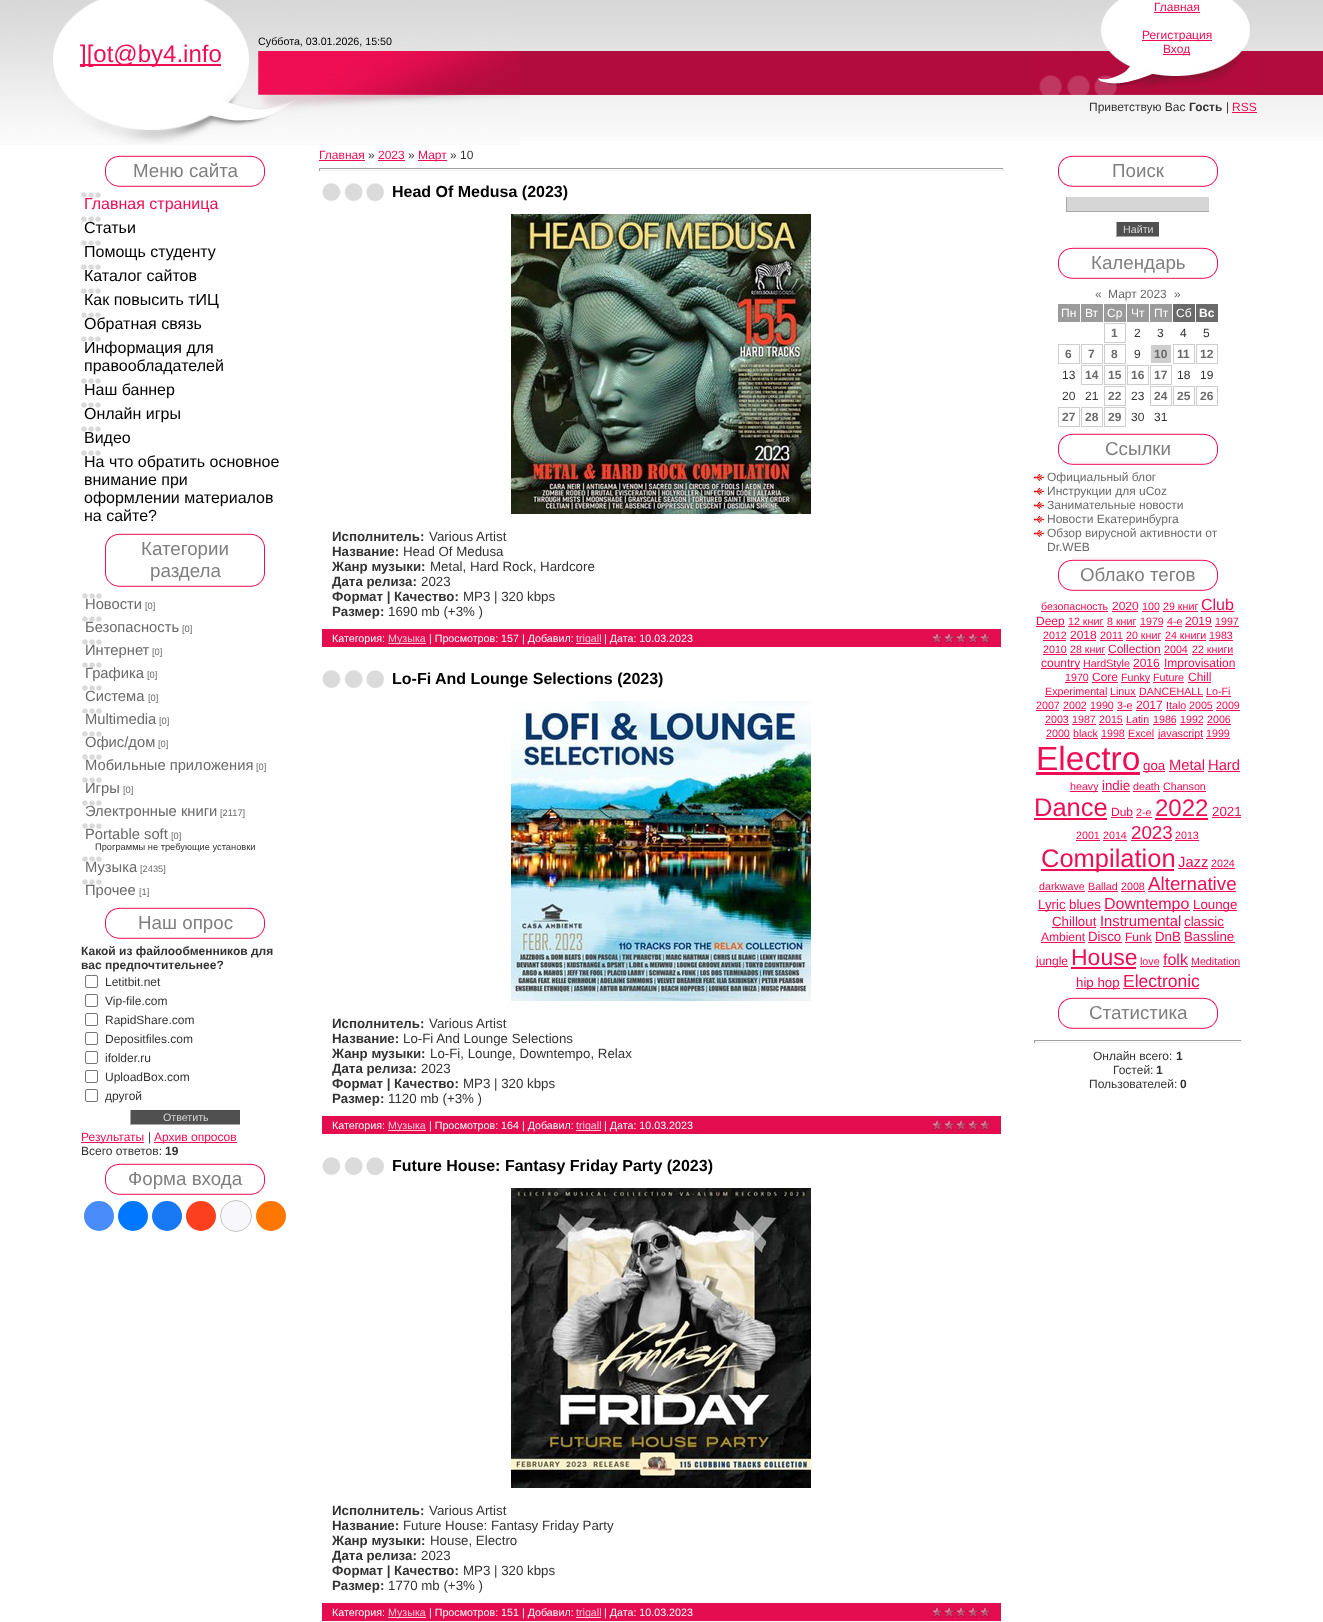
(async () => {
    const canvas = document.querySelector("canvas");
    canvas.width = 1323;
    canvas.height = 1622;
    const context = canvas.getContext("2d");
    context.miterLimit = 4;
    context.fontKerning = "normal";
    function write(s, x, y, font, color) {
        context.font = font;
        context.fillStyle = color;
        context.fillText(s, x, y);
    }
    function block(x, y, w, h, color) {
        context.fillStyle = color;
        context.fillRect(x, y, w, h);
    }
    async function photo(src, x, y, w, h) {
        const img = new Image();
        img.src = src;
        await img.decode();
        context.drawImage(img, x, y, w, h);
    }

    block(0, 0, 1323, 1622, "rgb(255, 255, 255)");
    await photo("media/1.png", 520, 0, 803, 141);
    await photo("media/2.png", 0, 0, 520, 145);
    write("Суббота, 03.01.2026, 15:50", 258, 45, "10.7px Liberation Sans", "rgb(0, 0, 0)");
    await photo("media/3.png", 1032, 0, 225, 95);
    write("Главная", 1154, 11, "12px Liberation Sans", "rgb(239, 14, 83)");
    block(1154, 12, 46, 1, "rgb(239, 14, 83)");
    block(1142, 40, 70, 1, "rgb(239, 14, 83)");
    write("Регистрация", 1142, 39, "12px Liberation Sans", "rgb(239, 14, 83)");
    block(1163, 54, 27, 1, "rgb(239, 14, 83)");
    write("Вход", 1163, 53, "12px Liberation Sans", "rgb(239, 14, 83)");
    block(80, 64, 141, 2, "rgb(239, 14, 83)");
    write("][ot@by4.info", 80, 62, "24px Liberation Sans", "rgb(239, 14, 83)");
    write("Приветствую Вас", 1089, 111, "12px Liberation Sans", "rgb(51, 51, 51)");
    write("Гость", 1189, 111, "bold 12px Liberation Sans", "rgb(51, 51, 51)");
    write("|", 1226, 111, "12px Liberation Sans", "rgb(51, 51, 51)");
    write("RSS", 1232, 111, "12px Liberation Sans", "rgb(239, 14, 83)");
    block(1232, 112, 25, 1, "rgb(239, 14, 83)");
    await photo("media/4.png", 105, 155, 160, 18);
    await photo("media/5.png", 105, 173, 160, 14);
    write("Меню сайта", 133, 177, "18.75px Liberation Sans", "rgb(127, 127, 127)");
    await photo("media/6.png", 81, 192, 20, 6);
    write("Главная страница", 84, 209, "16px Liberation Sans", "rgb(239, 14, 83)");
    await photo("media/6.png", 81, 216, 20, 6);
    write("Статьи", 84, 233, "16px Liberation Sans", "rgb(0, 0, 0)");
    await photo("media/6.png", 81, 240, 20, 6);
    write("Помощь студенту", 84, 257, "16px Liberation Sans", "rgb(0, 0, 0)");
    await photo("media/6.png", 81, 264, 20, 6);
    write("Каталог сайтов", 84, 281, "16px Liberation Sans", "rgb(0, 0, 0)");
    await photo("media/6.png", 81, 288, 20, 6);
    write("Как повысить тИЦ", 84, 305, "16px Liberation Sans", "rgb(0, 0, 0)");
    await photo("media/6.png", 81, 312, 20, 6);
    write("Обратная связь", 84, 329, "16px Liberation Sans", "rgb(0, 0, 0)");
    await photo("media/6.png", 81, 336, 20, 6);
    write("Информация для", 84, 353, "16px Liberation Sans", "rgb(0, 0, 0)");
    write("правообладателей", 84, 371, "16px Liberation Sans", "rgb(0, 0, 0)");
    await photo("media/6.png", 81, 378, 20, 6);
    write("Наш баннер", 84, 395, "16px Liberation Sans", "rgb(0, 0, 0)");
    await photo("media/6.png", 81, 402, 20, 6);
    write("Онлайн игры", 84, 419, "16px Liberation Sans", "rgb(0, 0, 0)");
    await photo("media/6.png", 81, 426, 20, 6);
    write("Видео", 84, 443, "16px Liberation Sans", "rgb(0, 0, 0)");
    await photo("media/6.png", 81, 450, 20, 6);
    write("На что обратить основное", 84, 467, "16px Liberation Sans", "rgb(0, 0, 0)");
    write("внимание при", 84, 485, "16px Liberation Sans", "rgb(0, 0, 0)");
    write("оформлении материалов", 84, 503, "16px Liberation Sans", "rgb(0, 0, 0)");
    write("на сайте?", 84, 521, "16px Liberation Sans", "rgb(0, 0, 0)");
    await photo("media/7.png", 105, 533, 160, 40);
    await photo("media/5.png", 105, 573, 160, 14);
    write("Категории", 141, 555, "18.75px Liberation Sans", "rgb(127, 127, 127)");
    write("раздела", 150, 577, "18.75px Liberation Sans", "rgb(127, 127, 127)");
    await photo("media/6.png", 82, 593, 20, 6);
    write("Новости", 85, 609, "14.75px Liberation Sans", "rgb(106, 106, 106)");
    write("[0]", 145, 609, "9.3px Liberation Sans", "rgb(106, 106, 106)");
    await photo("media/6.png", 82, 616, 20, 6);
    write("Безопасность", 85, 632, "14.75px Liberation Sans", "rgb(106, 106, 106)");
    write("[0]", 182, 632, "9.3px Liberation Sans", "rgb(106, 106, 106)");
    await photo("media/6.png", 82, 639, 20, 6);
    write("Интернет", 85, 655, "14.75px Liberation Sans", "rgb(106, 106, 106)");
    write("[0]", 152, 655, "9.3px Liberation Sans", "rgb(106, 106, 106)");
    await photo("media/6.png", 82, 662, 20, 6);
    write("Графика", 85, 678, "14.75px Liberation Sans", "rgb(106, 106, 106)");
    write("[0]", 147, 678, "9.3px Liberation Sans", "rgb(106, 106, 106)");
    await photo("media/6.png", 82, 685, 20, 6);
    write("Система", 85, 701, "14.75px Liberation Sans", "rgb(106, 106, 106)");
    write("[0]", 148, 701, "9.3px Liberation Sans", "rgb(106, 106, 106)");
    await photo("media/6.png", 82, 708, 20, 6);
    write("Multimedia", 85, 724, "14.75px Liberation Sans", "rgb(106, 106, 106)");
    write("[0]", 159, 724, "9.3px Liberation Sans", "rgb(106, 106, 106)");
    await photo("media/6.png", 82, 731, 20, 6);
    write("Офис/дом", 85, 747, "14.75px Liberation Sans", "rgb(106, 106, 106)");
    write("[0]", 158, 747, "9.3px Liberation Sans", "rgb(106, 106, 106)");
    await photo("media/6.png", 82, 754, 20, 6);
    write("Мобильные приложения", 85, 770, "14.75px Liberation Sans", "rgb(106, 106, 106)");
    write("[0]", 256, 770, "9.3px Liberation Sans", "rgb(106, 106, 106)");
    await photo("media/6.png", 82, 777, 20, 6);
    write("Игры", 85, 793, "14.75px Liberation Sans", "rgb(106, 106, 106)");
    write("[0]", 123, 793, "9.3px Liberation Sans", "rgb(106, 106, 106)");
    await photo("media/6.png", 82, 800, 20, 6);
    write("Электронные книги", 85, 816, "14.75px Liberation Sans", "rgb(106, 106, 106)");
    write("[2117]", 220, 816, "9.3px Liberation Sans", "rgb(106, 106, 106)");
    await photo("media/6.png", 82, 823, 20, 6);
    write("Portable soft", 85, 839, "14.75px Liberation Sans", "rgb(106, 106, 106)");
    write("[0]", 171, 839, "9.3px Liberation Sans", "rgb(106, 106, 106)");
    write("Программы не требующие установки", 95, 850, "9.3px Liberation Sans", "rgb(51, 51, 51)");
    await photo("media/6.png", 82, 856, 20, 6);
    write("Музыка", 85, 872, "14.75px Liberation Sans", "rgb(106, 106, 106)");
    write("[2435]", 140, 872, "9.3px Liberation Sans", "rgb(106, 106, 106)");
    await photo("media/6.png", 82, 879, 20, 6);
    write("Прочее", 85, 895, "14.75px Liberation Sans", "rgb(106, 106, 106)");
    write("[1]", 139, 895, "9.3px Liberation Sans", "rgb(106, 106, 106)");
    await photo("media/4.png", 105, 907, 160, 18);
    await photo("media/5.png", 105, 925, 160, 14);
    write("Наш опрос", 138, 929, "18.75px Liberation Sans", "rgb(127, 127, 127)");
    write("Какой из файлообменников для", 81, 955, "bold 12px Liberation Sans", "rgb(51, 51, 51)");
    write("вас предпочтительнее?", 81, 969, "bold 12px Liberation Sans", "rgb(51, 51, 51)");
    context.beginPath();
    context.roundRect(85.5, 975.5, 12, 12, 1.5);
    context.strokeStyle = "rgb(118, 118, 118)";
    context.stroke();
    write("Letitbit.net", 105, 986, "12px Liberation Sans", "rgb(51, 51, 51)");
    context.beginPath();
    context.roundRect(85.5, 994.5, 12, 12, 1.5);
    context.stroke();
    write("Vip-file.com", 105, 1005, "12px Liberation Sans", "rgb(51, 51, 51)");
    context.beginPath();
    context.roundRect(85.5, 1013.5, 12, 12, 1.5);
    context.stroke();
    write("RapidShare.com", 105, 1024, "12px Liberation Sans", "rgb(51, 51, 51)");
    context.beginPath();
    context.roundRect(85.5, 1032.5, 12, 12, 1.5);
    context.stroke();
    write("Depositfiles.com", 105, 1043, "12px Liberation Sans", "rgb(51, 51, 51)");
    context.beginPath();
    context.roundRect(85.5, 1051.5, 12, 12, 1.5);
    context.stroke();
    write("ifolder.ru", 105, 1062, "12px Liberation Sans", "rgb(51, 51, 51)");
    context.beginPath();
    context.roundRect(85.5, 1070.5, 12, 12, 1.5);
    context.stroke();
    write("UploadBox.com", 105, 1081, "12px Liberation Sans", "rgb(51, 51, 51)");
    context.beginPath();
    context.roundRect(85.5, 1089.5, 12, 12, 1.5);
    context.stroke();
    write("другой", 105, 1100, "12px Liberation Sans", "rgb(51, 51, 51)");
    block(131, 1110, 109, 14, "rgb(80, 80, 80)");
    block(130, 1124, 110, 1, "rgb(168, 167, 167)");
    block(130, 1110, 1, 15, "rgb(168, 167, 167)");
    write("Ответить", 163, 1121, "10.7px Liberation Sans", "rgb(213, 213, 214)");
    block(81, 1142, 63, 1, "rgb(239, 14, 83)");
    write("Результаты", 81, 1141, "12px Liberation Sans", "rgb(239, 14, 83)");
    write("|", 148, 1141, "12px Liberation Sans", "rgb(51, 51, 51)");
    block(154, 1142, 83, 1, "rgb(239, 14, 83)");
    write("Архив опросов", 154, 1141, "12px Liberation Sans", "rgb(239, 14, 83)");
    write("Всего ответов:", 81, 1155, "12px Liberation Sans", "rgb(51, 51, 51)");
    write("19", 165, 1155, "bold 12px Liberation Sans", "rgb(51, 51, 51)");
    await photo("media/4.png", 105, 1163, 160, 18);
    await photo("media/5.png", 105, 1181, 160, 14);
    write("Форма входа", 128, 1185, "18.75px Liberation Sans", "rgb(127, 127, 127)");
    context.fillStyle = "rgb(73, 139, 250)";
    context.beginPath();
    context.arc(99, 1216, 15, 0, Math.PI * 2);
    context.fill();
    context.fillStyle = "rgb(0, 119, 255)";
    context.beginPath();
    context.arc(133, 1216, 15, 0, Math.PI * 2);
    context.fill();
    context.fillStyle = "rgb(24, 119, 242)";
    context.beginPath();
    context.arc(167, 1216, 15, 0, Math.PI * 2);
    context.fill();
    context.fillStyle = "rgb(252, 63, 29)";
    context.beginPath();
    context.arc(201, 1216, 15, 0, Math.PI * 2);
    context.fill();
    context.fillStyle = "rgb(248, 248, 252)";
    context.beginPath();
    context.arc(236, 1216, 15.5, 0, Math.PI * 2);
    context.fill();
    context.strokeStyle = "rgb(196, 196, 196)";
    context.stroke();
    context.fillStyle = "rgb(255, 119, 0)";
    context.beginPath();
    context.arc(271, 1216, 15, 0, Math.PI * 2);
    context.fill();
    write("Главная", 319, 159, "12px Liberation Sans", "rgb(239, 14, 83)");
    block(319, 160, 46, 1, "rgb(239, 14, 83)");
    write("»", 368, 159, "12px Liberation Sans", "rgb(51, 51, 51)");
    write("2023", 378, 159, "12px Liberation Sans", "rgb(239, 14, 83)");
    block(378, 160, 27, 1, "rgb(239, 14, 83)");
    write("»", 408, 159, "12px Liberation Sans", "rgb(51, 51, 51)");
    block(418, 160, 29, 1, "rgb(239, 14, 83)");
    write("Март", 418, 159, "12px Liberation Sans", "rgb(239, 14, 83)");
    write("» 10", 450, 159, "12px Liberation Sans", "rgb(51, 51, 51)");
    block(319, 168, 685, 1, "rgb(159, 159, 159)");
    block(1003, 168, 1, 3, "rgb(238, 238, 238)");
    block(319, 170, 685, 1, "rgb(238, 238, 238)");
    block(319, 168, 1, 3, "rgb(159, 159, 159)");
    await photo("media/8.png", 322, 183, 62, 19);
    write("Head Of Medusa (2023)", 392, 197, "bold 16px Liberation Sans", "rgb(0, 0, 0)");
    await photo("media/9.png", 511, 214, 300, 300);
    write("Исполнитель:", 332, 541, "bold 13.3px Liberation Sans", "rgb(51, 51, 51)");
    write("Various Artist", 429, 541, "13.3px Liberation Sans", "rgb(51, 51, 51)");
    write("Название:", 332, 556, "bold 13.3px Liberation Sans", "rgb(51, 51, 51)");
    write("Head Of Medusa", 403, 556, "13.3px Liberation Sans", "rgb(51, 51, 51)");
    write("Жанр музыки:", 332, 571, "bold 13.3px Liberation Sans", "rgb(51, 51, 51)");
    write("Metal, Hard Rock, Hardcore", 430, 571, "13.3px Liberation Sans", "rgb(51, 51, 51)");
    write("Дата релиза:", 332, 586, "bold 13.3px Liberation Sans", "rgb(51, 51, 51)");
    write("2023", 421, 586, "13.3px Liberation Sans", "rgb(51, 51, 51)");
    write("Формат | Качество:", 332, 601, "bold 13.3px Liberation Sans", "rgb(51, 51, 51)");
    write("MP3 | 320 kbps", 463, 601, "13.3px Liberation Sans", "rgb(51, 51, 51)");
    write("Размер:", 332, 616, "bold 13.3px Liberation Sans", "rgb(51, 51, 51)");
    write("1690 mb (+3% )", 388, 616, "13.3px Liberation Sans", "rgb(51, 51, 51)");
    block(322, 629, 679, 18, "rgb(228, 13, 80)");
    write("Категория:", 332, 642, "10.7px Liberation Sans", "rgb(255, 255, 255)");
    block(388, 643, 38, 1, "rgb(255, 198, 216)");
    write("Музыка", 388, 642, "10.7px Liberation Sans", "rgb(255, 198, 216)");
    write("| Просмотров: 157 | Добавил:", 429, 642, "10.7px Liberation Sans", "rgb(255, 255, 255)");
    block(576, 643, 25, 1, "rgb(255, 198, 216)");
    write("trigall", 576, 642, "10.7px Liberation Sans", "rgb(255, 198, 216)");
    write("| Дата: 10.03.2023", 604, 642, "10.7px Liberation Sans", "rgb(255, 255, 255)");
    await photo("media/10.png", 931, 632, 60, 12);
    await photo("media/8.png", 322, 670, 62, 19);
    write("Lo-Fi And Lounge Selections (2023)", 392, 684, "bold 16px Liberation Sans", "rgb(0, 0, 0)");
    await photo("media/11.png", 511, 701, 300, 300);
    write("Исполнитель:", 332, 1028, "bold 13.3px Liberation Sans", "rgb(51, 51, 51)");
    write("Various Artist", 429, 1028, "13.3px Liberation Sans", "rgb(51, 51, 51)");
    write("Название:", 332, 1043, "bold 13.3px Liberation Sans", "rgb(51, 51, 51)");
    write("Lo-Fi And Lounge Selections", 403, 1043, "13.3px Liberation Sans", "rgb(51, 51, 51)");
    write("Жанр музыки:", 332, 1058, "bold 13.3px Liberation Sans", "rgb(51, 51, 51)");
    write("Lo-Fi, Lounge, Downtempo, Relax", 430, 1058, "13.3px Liberation Sans", "rgb(51, 51, 51)");
    write("Дата релиза:", 332, 1073, "bold 13.3px Liberation Sans", "rgb(51, 51, 51)");
    write("2023", 421, 1073, "13.3px Liberation Sans", "rgb(51, 51, 51)");
    write("Формат | Качество:", 332, 1088, "bold 13.3px Liberation Sans", "rgb(51, 51, 51)");
    write("MP3 | 320 kbps", 463, 1088, "13.3px Liberation Sans", "rgb(51, 51, 51)");
    write("Размер:", 332, 1103, "bold 13.3px Liberation Sans", "rgb(51, 51, 51)");
    write("1120 mb (+3% )", 388, 1103, "13.3px Liberation Sans", "rgb(51, 51, 51)");
    block(322, 1116, 679, 18, "rgb(228, 13, 80)");
    write("Категория:", 332, 1129, "10.7px Liberation Sans", "rgb(255, 255, 255)");
    block(388, 1130, 38, 1, "rgb(255, 198, 216)");
    write("Музыка", 388, 1129, "10.7px Liberation Sans", "rgb(255, 198, 216)");
    write("| Просмотров: 164 | Добавил:", 429, 1129, "10.7px Liberation Sans", "rgb(255, 255, 255)");
    block(576, 1130, 25, 1, "rgb(255, 198, 216)");
    write("trigall", 576, 1129, "10.7px Liberation Sans", "rgb(255, 198, 216)");
    write("| Дата: 10.03.2023", 604, 1129, "10.7px Liberation Sans", "rgb(255, 255, 255)");
    await photo("media/10.png", 931, 1119, 60, 12);
    await photo("media/8.png", 322, 1157, 62, 19);
    write("Future House: Fantasy Friday Party (2023)", 392, 1171, "bold 16px Liberation Sans", "rgb(0, 0, 0)");
    await photo("media/12.png", 511, 1188, 300, 300);
    write("Исполнитель:", 332, 1515, "bold 13.3px Liberation Sans", "rgb(51, 51, 51)");
    write("Various Artist", 429, 1515, "13.3px Liberation Sans", "rgb(51, 51, 51)");
    write("Название:", 332, 1530, "bold 13.3px Liberation Sans", "rgb(51, 51, 51)");
    write("Future House: Fantasy Friday Party", 403, 1530, "13.3px Liberation Sans", "rgb(51, 51, 51)");
    write("Жанр музыки:", 332, 1545, "bold 13.3px Liberation Sans", "rgb(51, 51, 51)");
    write("House, Electro", 430, 1545, "13.3px Liberation Sans", "rgb(51, 51, 51)");
    write("Дата релиза:", 332, 1560, "bold 13.3px Liberation Sans", "rgb(51, 51, 51)");
    write("2023", 421, 1560, "13.3px Liberation Sans", "rgb(51, 51, 51)");
    write("Формат | Качество:", 332, 1575, "bold 13.3px Liberation Sans", "rgb(51, 51, 51)");
    write("MP3 | 320 kbps", 463, 1575, "13.3px Liberation Sans", "rgb(51, 51, 51)");
    write("Размер:", 332, 1590, "bold 13.3px Liberation Sans", "rgb(51, 51, 51)");
    write("1770 mb (+3% )", 388, 1590, "13.3px Liberation Sans", "rgb(51, 51, 51)");
    block(322, 1603, 679, 18, "rgb(228, 13, 80)");
    write("Категория:", 332, 1616, "10.7px Liberation Sans", "rgb(255, 255, 255)");
    block(388, 1617, 38, 1, "rgb(255, 198, 216)");
    write("Музыка", 388, 1616, "10.7px Liberation Sans", "rgb(255, 198, 216)");
    write("| Просмотров: 151 | Добавил:", 429, 1616, "10.7px Liberation Sans", "rgb(255, 255, 255)");
    block(576, 1617, 25, 1, "rgb(255, 198, 216)");
    write("trigall", 576, 1616, "10.7px Liberation Sans", "rgb(255, 198, 216)");
    write("| Дата: 10.03.2023", 604, 1616, "10.7px Liberation Sans", "rgb(255, 255, 255)");
    await photo("media/10.png", 931, 1606, 60, 12);
    await photo("media/4.png", 1058, 155, 160, 18);
    await photo("media/5.png", 1058, 173, 160, 14);
    write("Поиск", 1112, 177, "18.75px Liberation Sans", "rgb(127, 127, 127)");
    block(1067, 197, 142, 14, "rgb(213, 213, 214)");
    block(1066, 211, 143, 1, "rgb(168, 167, 167)");
    block(1066, 197, 1, 15, "rgb(168, 167, 167)");
    block(1117, 222, 42, 14, "rgb(80, 80, 80)");
    block(1116, 236, 43, 1, "rgb(168, 167, 167)");
    block(1116, 222, 1, 15, "rgb(168, 167, 167)");
    write("Найти", 1123, 233, "10.7px Liberation Sans", "rgb(213, 213, 214)");
    await photo("media/4.png", 1058, 247, 160, 18);
    await photo("media/5.png", 1058, 265, 160, 14);
    write("Календарь", 1091, 269, "18.75px Liberation Sans", "rgb(127, 127, 127)");
    write("«", 1095, 298, "12px Liberation Sans", "rgb(106, 106, 106)");
    write("Март 2023", 1108, 298, "12px Liberation Sans", "rgb(106, 106, 106)");
    write("»", 1174, 298, "12px Liberation Sans", "rgb(106, 106, 106)");
    block(1058, 304, 22, 18, "rgb(155, 155, 155)");
    write("Пн", 1061, 317, "12px Liberation Sans", "rgb(255, 255, 255)");
    block(1081, 304, 22, 18, "rgb(155, 155, 155)");
    write("Вт", 1085, 317, "12px Liberation Sans", "rgb(255, 255, 255)");
    block(1104, 304, 22, 18, "rgb(155, 155, 155)");
    write("Ср", 1107, 317, "12px Liberation Sans", "rgb(255, 255, 255)");
    block(1127, 304, 22, 18, "rgb(155, 155, 155)");
    write("Чт", 1131, 317, "12px Liberation Sans", "rgb(255, 255, 255)");
    block(1150, 304, 22, 18, "rgb(155, 155, 155)");
    write("Пт", 1154, 317, "12px Liberation Sans", "rgb(255, 255, 255)");
    block(1173, 304, 22, 18, "rgb(106, 106, 106)");
    write("Сб", 1176, 317, "12px Liberation Sans", "rgb(255, 255, 255)");
    block(1196, 304, 22, 18, "rgb(106, 106, 106)");
    write("Вс", 1199, 317, "bold 12px Liberation Sans", "rgb(255, 255, 255)");
    context.strokeStyle = "rgb(206, 206, 206)";
    context.strokeRect(1104.5, 323.5, 21, 19);
    write("1", 1111, 337, "bold 12px Liberation Sans", "rgb(106, 106, 106)");
    write("2", 1134, 337, "12px Liberation Sans", "rgb(51, 51, 51)");
    write("3", 1157, 337, "12px Liberation Sans", "rgb(51, 51, 51)");
    write("4", 1180, 337, "12px Liberation Sans", "rgb(51, 51, 51)");
    write("5", 1203, 337, "12px Liberation Sans", "rgb(51, 51, 51)");
    context.strokeRect(1058.5, 344.5, 21, 19);
    write("6", 1065, 358, "bold 12px Liberation Sans", "rgb(106, 106, 106)");
    context.strokeRect(1081.5, 344.5, 21, 19);
    write("7", 1088, 358, "bold 12px Liberation Sans", "rgb(106, 106, 106)");
    context.strokeRect(1104.5, 344.5, 21, 19);
    write("8", 1111, 358, "bold 12px Liberation Sans", "rgb(106, 106, 106)");
    write("9", 1134, 358, "12px Liberation Sans", "rgb(51, 51, 51)");
    block(1151, 345, 20, 18, "rgb(206, 206, 206)");
    write("10", 1154, 358, "bold 12px Liberation Sans", "rgb(106, 106, 106)");
    context.strokeRect(1173.5, 344.5, 21, 19);
    write("11", 1177, 358, "bold 12px Liberation Sans", "rgb(106, 106, 106)");
    context.strokeRect(1196.5, 344.5, 21, 19);
    write("12", 1200, 358, "bold 12px Liberation Sans", "rgb(106, 106, 106)");
    write("13", 1062, 379, "12px Liberation Sans", "rgb(51, 51, 51)");
    context.strokeRect(1081.5, 365.5, 21, 19);
    write("14", 1085, 379, "bold 12px Liberation Sans", "rgb(106, 106, 106)");
    context.strokeRect(1104.5, 365.5, 21, 19);
    write("15", 1108, 379, "bold 12px Liberation Sans", "rgb(106, 106, 106)");
    context.strokeRect(1127.5, 365.5, 21, 19);
    write("16", 1131, 379, "bold 12px Liberation Sans", "rgb(106, 106, 106)");
    context.strokeRect(1150.5, 365.5, 21, 19);
    write("17", 1154, 379, "bold 12px Liberation Sans", "rgb(106, 106, 106)");
    write("18", 1177, 379, "12px Liberation Sans", "rgb(51, 51, 51)");
    write("19", 1200, 379, "12px Liberation Sans", "rgb(51, 51, 51)");
    write("20", 1062, 400, "12px Liberation Sans", "rgb(51, 51, 51)");
    write("21", 1085, 400, "12px Liberation Sans", "rgb(51, 51, 51)");
    context.strokeRect(1104.5, 386.5, 21, 19);
    write("22", 1108, 400, "bold 12px Liberation Sans", "rgb(106, 106, 106)");
    write("23", 1131, 400, "12px Liberation Sans", "rgb(51, 51, 51)");
    context.strokeRect(1150.5, 386.5, 21, 19);
    write("24", 1154, 400, "bold 12px Liberation Sans", "rgb(106, 106, 106)");
    context.strokeRect(1173.5, 386.5, 21, 19);
    write("25", 1177, 400, "bold 12px Liberation Sans", "rgb(106, 106, 106)");
    context.strokeRect(1196.5, 386.5, 21, 19);
    write("26", 1200, 400, "bold 12px Liberation Sans", "rgb(106, 106, 106)");
    context.strokeRect(1058.5, 407.5, 21, 19);
    write("27", 1062, 421, "bold 12px Liberation Sans", "rgb(106, 106, 106)");
    context.strokeRect(1081.5, 407.5, 21, 19);
    write("28", 1085, 421, "bold 12px Liberation Sans", "rgb(106, 106, 106)");
    context.strokeRect(1104.5, 407.5, 21, 19);
    write("29", 1108, 421, "bold 12px Liberation Sans", "rgb(106, 106, 106)");
    write("30", 1131, 421, "12px Liberation Sans", "rgb(51, 51, 51)");
    write("31", 1154, 421, "12px Liberation Sans", "rgb(51, 51, 51)");
    await photo("media/4.png", 1058, 433, 160, 18);
    await photo("media/5.png", 1058, 451, 160, 14);
    write("Ссылки", 1105, 455, "18.75px Liberation Sans", "rgb(127, 127, 127)");
    await photo("media/13.png", 1034, 473, 11, 8);
    write("Официальный блог", 1047, 481, "12px Liberation Sans", "rgb(106, 106, 106)");
    await photo("media/13.png", 1034, 487, 11, 8);
    write("Инструкции для uCoz", 1047, 495, "12px Liberation Sans", "rgb(106, 106, 106)");
    await photo("media/13.png", 1034, 501, 11, 8);
    write("Занимательные новости", 1047, 509, "12px Liberation Sans", "rgb(106, 106, 106)");
    await photo("media/13.png", 1034, 515, 11, 8);
    write("Новости Екатеринбурга", 1047, 523, "12px Liberation Sans", "rgb(106, 106, 106)");
    await photo("media/13.png", 1034, 529, 11, 8);
    write("Обзор вирусной активности от", 1047, 537, "12px Liberation Sans", "rgb(106, 106, 106)");
    write("Dr.WEB", 1047, 551, "12px Liberation Sans", "rgb(106, 106, 106)");
    await photo("media/4.png", 1058, 559, 160, 18);
    await photo("media/5.png", 1058, 577, 160, 14);
    write("Облако тегов", 1080, 581, "18.75px Liberation Sans", "rgb(127, 127, 127)");
    write("безопасность", 1041, 610, "10.7px Liberation Sans", "rgb(239, 14, 83)");
    block(1041, 611, 67, 1, "rgb(239, 14, 83)");
    write("2020", 1112, 610, "12px Liberation Sans", "rgb(239, 14, 83)");
    block(1112, 611, 26, 1, "rgb(239, 14, 83)");
    write("100", 1142, 610, "10.7px Liberation Sans", "rgb(239, 14, 83)");
    block(1142, 611, 17, 1, "rgb(239, 14, 83)");
    write("29 книг", 1163, 610, "10.7px Liberation Sans", "rgb(239, 14, 83)");
    block(1163, 611, 35, 1, "rgb(239, 14, 83)");
    block(1201, 611, 33, 1, "rgb(239, 14, 83)");
    write("Club", 1201, 610, "16px Liberation Sans", "rgb(239, 14, 83)");
    block(1036, 626, 29, 1, "rgb(239, 14, 83)");
    write("Deep", 1036, 625, "12px Liberation Sans", "rgb(239, 14, 83)");
    write("12 книг", 1068, 625, "10.7px Liberation Sans", "rgb(239, 14, 83)");
    block(1068, 626, 36, 1, "rgb(239, 14, 83)");
    write("8 книг", 1107, 625, "10.7px Liberation Sans", "rgb(239, 14, 83)");
    block(1107, 626, 29, 1, "rgb(239, 14, 83)");
    write("1979", 1140, 625, "10.7px Liberation Sans", "rgb(239, 14, 83)");
    block(1140, 626, 23, 1, "rgb(239, 14, 83)");
    write("4-е", 1167, 625, "10.7px Liberation Sans", "rgb(239, 14, 83)");
    block(1167, 626, 15, 1, "rgb(239, 14, 83)");
    write("2019", 1185, 625, "12px Liberation Sans", "rgb(239, 14, 83)");
    block(1185, 626, 27, 1, "rgb(239, 14, 83)");
    write("1997", 1215, 625, "10.7px Liberation Sans", "rgb(239, 14, 83)");
    block(1215, 626, 24, 1, "rgb(239, 14, 83)");
    write("2012", 1043, 639, "10.7px Liberation Sans", "rgb(239, 14, 83)");
    block(1043, 640, 23, 1, "rgb(239, 14, 83)");
    write("2018", 1070, 639, "12px Liberation Sans", "rgb(239, 14, 83)");
    block(1070, 640, 26, 1, "rgb(239, 14, 83)");
    write("2011", 1100, 639, "10.7px Liberation Sans", "rgb(239, 14, 83)");
    block(1100, 640, 23, 1, "rgb(239, 14, 83)");
    write("20 книг", 1126, 639, "10.7px Liberation Sans", "rgb(239, 14, 83)");
    block(1126, 640, 35, 1, "rgb(239, 14, 83)");
    write("24 книги", 1165, 639, "10.7px Liberation Sans", "rgb(239, 14, 83)");
    block(1165, 640, 41, 1, "rgb(239, 14, 83)");
    write("1983", 1209, 639, "10.7px Liberation Sans", "rgb(239, 14, 83)");
    block(1209, 640, 24, 1, "rgb(239, 14, 83)");
    write("2010", 1043, 653, "10.7px Liberation Sans", "rgb(239, 14, 83)");
    block(1043, 654, 24, 1, "rgb(239, 14, 83)");
    write("28 книг", 1070, 653, "10.7px Liberation Sans", "rgb(239, 14, 83)");
    block(1070, 654, 35, 1, "rgb(239, 14, 83)");
    write("Collection", 1108, 653, "12px Liberation Sans", "rgb(239, 14, 83)");
    block(1108, 654, 53, 1, "rgb(239, 14, 83)");
    write("2004", 1164, 653, "10.7px Liberation Sans", "rgb(239, 14, 83)");
    block(1164, 654, 24, 1, "rgb(239, 14, 83)");
    write("22 книги", 1192, 653, "10.7px Liberation Sans", "rgb(239, 14, 83)");
    block(1192, 654, 41, 1, "rgb(239, 14, 83)");
    block(1041, 668, 39, 1, "rgb(239, 14, 83)");
    write("country", 1041, 667, "12px Liberation Sans", "rgb(239, 14, 83)");
    block(1083, 668, 47, 1, "rgb(239, 14, 83)");
    write("HardStyle", 1083, 667, "10.7px Liberation Sans", "rgb(239, 14, 83)");
    block(1133, 668, 27, 1, "rgb(239, 14, 83)");
    write("2016", 1133, 667, "12px Liberation Sans", "rgb(239, 14, 83)");
    block(1164, 668, 71, 1, "rgb(239, 14, 83)");
    write("Improvisation", 1164, 667, "12px Liberation Sans", "rgb(239, 14, 83)");
    write("1970", 1065, 681, "10.7px Liberation Sans", "rgb(239, 14, 83)");
    block(1065, 682, 23, 1, "rgb(239, 14, 83)");
    write("Core", 1092, 681, "12px Liberation Sans", "rgb(239, 14, 83)");
    block(1092, 682, 26, 1, "rgb(239, 14, 83)");
    block(1121, 682, 29, 1, "rgb(239, 14, 83)");
    write("Funky", 1121, 681, "10.7px Liberation Sans", "rgb(239, 14, 83)");
    block(1153, 682, 31, 1, "rgb(239, 14, 83)");
    write("Future", 1153, 681, "10.7px Liberation Sans", "rgb(239, 14, 83)");
    write("Chill", 1188, 681, "12px Liberation Sans", "rgb(239, 14, 83)");
    block(1188, 682, 23, 1, "rgb(239, 14, 83)");
    block(1045, 696, 62, 1, "rgb(239, 14, 83)");
    write("Experimental", 1045, 695, "10.7px Liberation Sans", "rgb(239, 14, 83)");
    write("Linux", 1110, 695, "10.7px Liberation Sans", "rgb(239, 14, 83)");
    block(1110, 696, 26, 1, "rgb(239, 14, 83)");
    write("DANCEHALL", 1139, 695, "10.7px Liberation Sans", "rgb(239, 14, 83)");
    block(1139, 696, 64, 1, "rgb(239, 14, 83)");
    write("Lo-Fi", 1206, 695, "10.7px Liberation Sans", "rgb(239, 14, 83)");
    block(1206, 696, 25, 1, "rgb(239, 14, 83)");
    write("2007", 1036, 709, "10.7px Liberation Sans", "rgb(239, 14, 83)");
    block(1036, 710, 23, 1, "rgb(239, 14, 83)");
    write("2002", 1063, 709, "10.7px Liberation Sans", "rgb(239, 14, 83)");
    block(1063, 710, 23, 1, "rgb(239, 14, 83)");
    write("1990", 1090, 709, "10.7px Liberation Sans", "rgb(239, 14, 83)");
    block(1090, 710, 23, 1, "rgb(239, 14, 83)");
    write("3-е", 1117, 709, "10.7px Liberation Sans", "rgb(239, 14, 83)");
    block(1117, 710, 15, 1, "rgb(239, 14, 83)");
    write("2017", 1136, 709, "12px Liberation Sans", "rgb(239, 14, 83)");
    block(1136, 710, 26, 1, "rgb(239, 14, 83)");
    write("Italo", 1166, 709, "10.7px Liberation Sans", "rgb(239, 14, 83)");
    block(1166, 710, 20, 1, "rgb(239, 14, 83)");
    write("2005", 1189, 709, "10.7px Liberation Sans", "rgb(239, 14, 83)");
    block(1189, 710, 24, 1, "rgb(239, 14, 83)");
    write("2009", 1216, 709, "10.7px Liberation Sans", "rgb(239, 14, 83)");
    block(1216, 710, 24, 1, "rgb(239, 14, 83)");
    write("2003", 1045, 723, "10.7px Liberation Sans", "rgb(239, 14, 83)");
    block(1045, 724, 24, 1, "rgb(239, 14, 83)");
    write("1987", 1072, 723, "10.7px Liberation Sans", "rgb(239, 14, 83)");
    block(1072, 724, 24, 1, "rgb(239, 14, 83)");
    write("2015", 1099, 723, "10.7px Liberation Sans", "rgb(239, 14, 83)");
    block(1099, 724, 24, 1, "rgb(239, 14, 83)");
    write("Latin", 1126, 723, "10.7px Liberation Sans", "rgb(239, 14, 83)");
    block(1126, 724, 23, 1, "rgb(239, 14, 83)");
    write("1986", 1153, 723, "10.7px Liberation Sans", "rgb(239, 14, 83)");
    block(1153, 724, 23, 1, "rgb(239, 14, 83)");
    write("1992", 1180, 723, "10.7px Liberation Sans", "rgb(239, 14, 83)");
    block(1180, 724, 23, 1, "rgb(239, 14, 83)");
    write("2006", 1207, 723, "10.7px Liberation Sans", "rgb(239, 14, 83)");
    block(1207, 724, 24, 1, "rgb(239, 14, 83)");
    write("2000", 1046, 737, "10.7px Liberation Sans", "rgb(239, 14, 83)");
    block(1046, 738, 24, 1, "rgb(239, 14, 83)");
    write("black", 1073, 737, "10.7px Liberation Sans", "rgb(239, 14, 83)");
    block(1073, 738, 25, 1, "rgb(239, 14, 83)");
    write("1998", 1101, 737, "10.7px Liberation Sans", "rgb(239, 14, 83)");
    block(1101, 738, 24, 1, "rgb(239, 14, 83)");
    write("Excel", 1128, 737, "10.7px Liberation Sans", "rgb(239, 14, 83)");
    block(1128, 738, 26, 1, "rgb(239, 14, 83)");
    block(1158, 738, 45, 1, "rgb(239, 14, 83)");
    write("javascript", 1158, 737, "10.7px Liberation Sans", "rgb(239, 14, 83)");
    write("1999", 1206, 737, "10.7px Liberation Sans", "rgb(239, 14, 83)");
    block(1206, 738, 24, 1, "rgb(239, 14, 83)");
    write("Electro", 1036, 770, "33.5px Liberation Sans", "rgb(239, 14, 83)");
    block(1143, 771, 22, 1, "rgb(239, 14, 83)");
    write("goa", 1143, 770, "13.3px Liberation Sans", "rgb(239, 14, 83)");
    block(1036, 772, 104, 3, "rgb(239, 14, 83)");
    block(1169, 771, 35, 1, "rgb(239, 14, 83)");
    write("Metal", 1169, 770, "14.75px Liberation Sans", "rgb(239, 14, 83)");
    write("Hard", 1208, 770, "14.75px Liberation Sans", "rgb(239, 14, 83)");
    block(1208, 771, 32, 1, "rgb(239, 14, 83)");
    block(1070, 791, 28, 1, "rgb(239, 14, 83)");
    write("heavy", 1070, 790, "10.7px Liberation Sans", "rgb(239, 14, 83)");
    block(1102, 791, 28, 1, "rgb(239, 14, 83)");
    write("indie", 1102, 790, "13.3px Liberation Sans", "rgb(239, 14, 83)");
    write("death", 1133, 790, "10.7px Liberation Sans", "rgb(239, 14, 83)");
    block(1133, 791, 27, 1, "rgb(239, 14, 83)");
    write("Chanson", 1163, 790, "10.7px Liberation Sans", "rgb(239, 14, 83)");
    block(1163, 791, 43, 1, "rgb(239, 14, 83)");
    write("Dance", 1034, 816, "25.5px Liberation Sans", "rgb(239, 14, 83)");
    write("Dub", 1111, 816, "12px Liberation Sans", "rgb(239, 14, 83)");
    block(1034, 818, 73, 2, "rgb(239, 14, 83)");
    block(1111, 817, 22, 1, "rgb(239, 14, 83)");
    write("2-е", 1136, 816, "10.7px Liberation Sans", "rgb(239, 14, 83)");
    block(1136, 817, 16, 1, "rgb(239, 14, 83)");
    block(1155, 818, 53, 2, "rgb(239, 14, 83)");
    write("2022", 1155, 816, "24px Liberation Sans", "rgb(239, 14, 83)");
    write("2021", 1212, 816, "13.3px Liberation Sans", "rgb(239, 14, 83)");
    block(1212, 817, 29, 1, "rgb(239, 14, 83)");
    write("2001", 1076, 839, "10.7px Liberation Sans", "rgb(239, 14, 83)");
    block(1076, 840, 24, 1, "rgb(239, 14, 83)");
    write("2014", 1103, 839, "10.7px Liberation Sans", "rgb(239, 14, 83)");
    block(1103, 840, 24, 1, "rgb(239, 14, 83)");
    write("2023", 1131, 839, "18.75px Liberation Sans", "rgb(239, 14, 83)");
    write("2013", 1175, 839, "10.7px Liberation Sans", "rgb(239, 14, 83)");
    block(1131, 840, 41, 1, "rgb(239, 14, 83)");
    block(1175, 840, 24, 1, "rgb(239, 14, 83)");
    block(1041, 869, 133, 2, "rgb(239, 14, 83)");
    write("Compilation", 1041, 867, "25.5px Liberation Sans", "rgb(239, 14, 83)");
    write("Jazz", 1178, 867, "14.75px Liberation Sans", "rgb(239, 14, 83)");
    block(1178, 868, 30, 1, "rgb(239, 14, 83)");
    write("2024", 1211, 867, "10.7px Liberation Sans", "rgb(239, 14, 83)");
    block(1211, 868, 24, 1, "rgb(239, 14, 83)");
    write("darkwave", 1039, 890, "10.7px Liberation Sans", "rgb(239, 14, 83)");
    block(1039, 891, 46, 1, "rgb(239, 14, 83)");
    write("Ballad", 1088, 890, "10.7px Liberation Sans", "rgb(239, 14, 83)");
    block(1088, 891, 30, 1, "rgb(239, 14, 83)");
    write("2008", 1121, 890, "10.7px Liberation Sans", "rgb(239, 14, 83)");
    block(1121, 891, 24, 1, "rgb(239, 14, 83)");
    block(1148, 891, 88, 1, "rgb(239, 14, 83)");
    write("Alternative", 1148, 890, "18.75px Liberation Sans", "rgb(239, 14, 83)");
    block(1038, 910, 28, 1, "rgb(239, 14, 83)");
    write("Lyric", 1038, 909, "13.3px Liberation Sans", "rgb(239, 14, 83)");
    write("blues", 1069, 909, "13.3px Liberation Sans", "rgb(239, 14, 83)");
    block(1069, 910, 32, 1, "rgb(239, 14, 83)");
    block(1104, 910, 86, 1, "rgb(239, 14, 83)");
    write("Downtempo", 1104, 909, "16px Liberation Sans", "rgb(239, 14, 83)");
    block(1193, 910, 44, 1, "rgb(239, 14, 83)");
    write("Lounge", 1193, 909, "13.3px Liberation Sans", "rgb(239, 14, 83)");
    write("Chillout", 1052, 926, "13.3px Liberation Sans", "rgb(239, 14, 83)");
    block(1052, 927, 44, 1, "rgb(239, 14, 83)");
    write("Instrumental", 1100, 926, "14.75px Liberation Sans", "rgb(239, 14, 83)");
    block(1100, 927, 80, 1, "rgb(239, 14, 83)");
    write("classic", 1184, 926, "13.3px Liberation Sans", "rgb(239, 14, 83)");
    block(1184, 927, 40, 1, "rgb(239, 14, 83)");
    write("Ambient", 1041, 941, "12px Liberation Sans", "rgb(239, 14, 83)");
    block(1041, 942, 44, 1, "rgb(239, 14, 83)");
    write("Disco", 1088, 941, "13.3px Liberation Sans", "rgb(239, 14, 83)");
    block(1088, 942, 34, 1, "rgb(239, 14, 83)");
    write("Funk", 1125, 941, "12px Liberation Sans", "rgb(239, 14, 83)");
    block(1125, 942, 27, 1, "rgb(239, 14, 83)");
    write("DnB", 1155, 941, "13.3px Liberation Sans", "rgb(239, 14, 83)");
    block(1155, 942, 26, 1, "rgb(239, 14, 83)");
    write("Bassline", 1184, 941, "13.3px Liberation Sans", "rgb(239, 14, 83)");
    block(1184, 942, 51, 1, "rgb(239, 14, 83)");
    block(1036, 966, 32, 1, "rgb(239, 14, 83)");
    write("jungle", 1036, 965, "12px Liberation Sans", "rgb(239, 14, 83)");
    block(1071, 967, 65, 2, "rgb(239, 14, 83)");
    write("House", 1071, 965, "23px Liberation Sans", "rgb(239, 14, 83)");
    write("love", 1140, 965, "10.7px Liberation Sans", "rgb(239, 14, 83)");
    block(1140, 966, 19, 1, "rgb(239, 14, 83)");
    write("folk", 1163, 965, "16px Liberation Sans", "rgb(239, 14, 83)");
    write("Meditation", 1191, 965, "10.7px Liberation Sans", "rgb(239, 14, 83)");
    block(1163, 966, 25, 1, "rgb(239, 14, 83)");
    block(1191, 966, 49, 1, "rgb(239, 14, 83)");
    block(1076, 988, 44, 1, "rgb(239, 14, 83)");
    write("hip hop", 1076, 987, "13.3px Liberation Sans", "rgb(239, 14, 83)");
    block(1123, 988, 76, 1, "rgb(239, 14, 83)");
    write("Electronic", 1123, 987, "17.5px Liberation Sans", "rgb(239, 14, 83)");
    await photo("media/4.png", 1058, 997, 160, 18);
    await photo("media/5.png", 1058, 1015, 160, 14);
    write("Статистика", 1089, 1019, "18.75px Liberation Sans", "rgb(127, 127, 127)");
    block(1034, 1040, 208, 1, "rgb(159, 159, 159)");
    block(1241, 1040, 1, 3, "rgb(238, 238, 238)");
    block(1034, 1042, 208, 1, "rgb(238, 238, 238)");
    block(1034, 1040, 1, 3, "rgb(159, 159, 159)");
    write("Онлайн всего:", 1093, 1060, "12px Liberation Sans", "rgb(51, 51, 51)");
    write("1", 1176, 1060, "bold 12px Liberation Sans", "rgb(51, 51, 51)");
    write("Гостей:", 1113, 1074, "12px Liberation Sans", "rgb(51, 51, 51)");
    write("1", 1156, 1074, "bold 12px Liberation Sans", "rgb(51, 51, 51)");
    write("Пользователей:", 1089, 1088, "12px Liberation Sans", "rgb(51, 51, 51)");
    write("0", 1180, 1088, "bold 12px Liberation Sans", "rgb(51, 51, 51)");
})();
